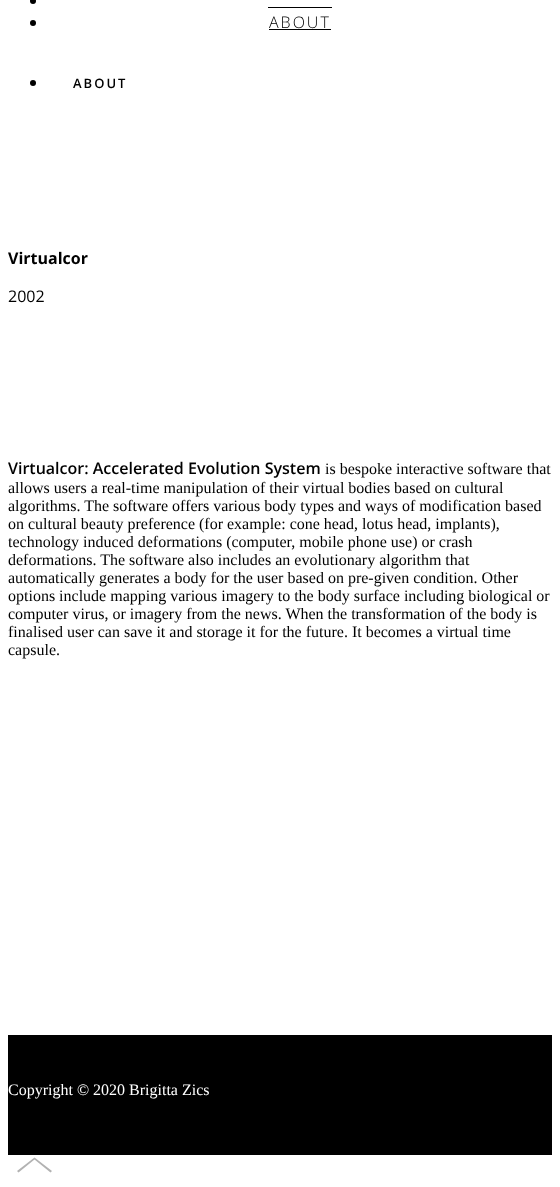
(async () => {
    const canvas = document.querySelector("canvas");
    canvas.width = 560;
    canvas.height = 1187;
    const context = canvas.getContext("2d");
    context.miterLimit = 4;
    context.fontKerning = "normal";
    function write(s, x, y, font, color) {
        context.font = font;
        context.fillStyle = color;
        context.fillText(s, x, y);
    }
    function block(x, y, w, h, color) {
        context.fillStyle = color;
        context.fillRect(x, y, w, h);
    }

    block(0, 0, 560, 1187, "rgb(255, 255, 255)");
    context.fillStyle = "rgb(0, 0, 0)";
    context.beginPath();
    context.arc(33, 1, 3, 0, Math.PI * 2);
    context.fill();
    block(268, 7, 64, 1, "rgb(0, 0, 0)");
    context.beginPath();
    context.arc(33, 23, 3, 0, Math.PI * 2);
    context.fill();
    context.letterSpacing = "2px";
    write("ABOUT", 269, 28, "300 16px Open Sans", "rgb(0, 0, 0)");
    block(269, 29, 62, 1, "rgb(0, 0, 0)");
    context.beginPath();
    context.arc(33, 83, 3, 0, Math.PI * 2);
    context.fill();
    write("ABOUT", 73, 88, "600 13px Open Sans", "rgb(0, 0, 0)");
    context.letterSpacing = "0px";
    write("Virtualcor", 8, 264, "bold 16px Open Sans", "rgb(0, 0, 0)");
    write("2002", 8, 302, "16px Open Sans", "rgb(0, 0, 0)");
    write("Virtualcor: Accelerated Evolution System", 8, 474, "600 16px Open Sans", "rgb(0, 0, 0)");
    write("is bespoke interactive software that", 325, 474, "16px Liberation Serif", "rgb(0, 0, 0)");
    write("allows users a real-time manipulation of their virtual bodies based on cultural", 8, 493, "16px Liberation Serif", "rgb(0, 0, 0)");
    write("algorithms. The software offers various body types and ways of modification based", 8, 511, "16px Liberation Serif", "rgb(0, 0, 0)");
    write("on cultural beauty preference (for example: cone head, lotus head, implants),", 8, 529, "16px Liberation Serif", "rgb(0, 0, 0)");
    write("technology induced deformations (computer, mobile phone use) or crash", 8, 547, "16px Liberation Serif", "rgb(0, 0, 0)");
    write("deformations. The software also includes an evolutionary algorithm that", 8, 565, "16px Liberation Serif", "rgb(0, 0, 0)");
    write("automatically generates a body for the user based on pre-given condition. Other", 8, 583, "16px Liberation Serif", "rgb(0, 0, 0)");
    write("options include mapping various imagery to the body surface including biological or", 8, 601, "16px Liberation Serif", "rgb(0, 0, 0)");
    write("computer virus, or imagery from the news. When the transformation of the body is", 8, 619, "16px Liberation Serif", "rgb(0, 0, 0)");
    write("finalised user can save it and storage it for the future. It becomes a virtual time", 8, 637, "16px Liberation Serif", "rgb(0, 0, 0)");
    write("capsule.", 8, 655, "16px Liberation Serif", "rgb(0, 0, 0)");
    block(8, 1035, 544, 120, "rgb(0, 0, 0)");
    write("Copyright © 2020 Brigitta Zics", 8, 1095, "16px Liberation Serif", "rgb(255, 255, 255)");
    context.fillStyle = "rgb(178, 178, 178)";
    context.beginPath();
    context.moveTo(52, 1171);
    context.lineTo(50.5, 1172.5);
    context.lineTo(34.5, 1159.5);
    context.lineTo(18.5, 1172.5);
    context.lineTo(17, 1171);
    context.lineTo(34.5, 1157.5);
    context.closePath();
    context.fill();
})();
